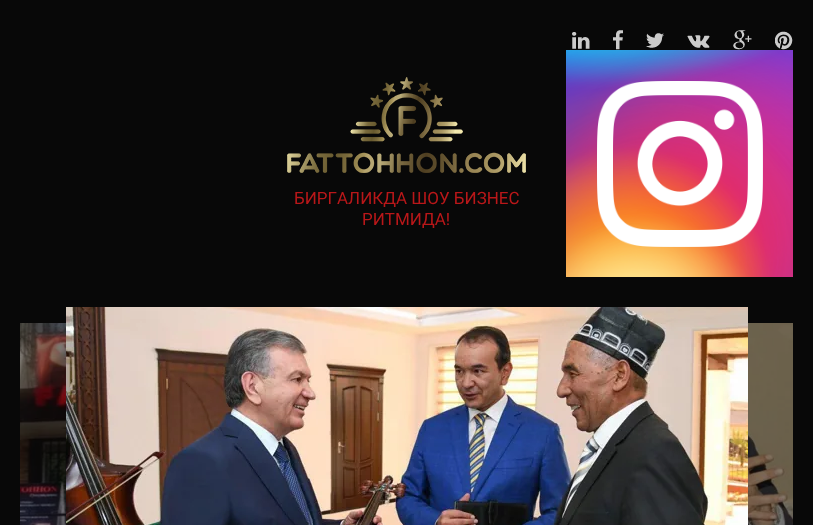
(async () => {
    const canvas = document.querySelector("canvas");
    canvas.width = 813;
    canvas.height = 525;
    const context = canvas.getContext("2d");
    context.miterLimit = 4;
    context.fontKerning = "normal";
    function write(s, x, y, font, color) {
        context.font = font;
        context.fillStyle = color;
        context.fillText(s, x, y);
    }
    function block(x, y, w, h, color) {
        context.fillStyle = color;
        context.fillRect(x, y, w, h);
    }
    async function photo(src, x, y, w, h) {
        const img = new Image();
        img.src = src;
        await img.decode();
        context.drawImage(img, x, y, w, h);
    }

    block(0, 0, 813, 525, "rgb(8, 8, 8)");
    await photo("media/1.png", 287, 77, 239, 96);
    write("БИРГАЛИКДА ШОУ БИЗНЕС", 294, 204, "17px Roboto", "rgb(185, 23, 25)");
    write("РИТМИДА!", 362, 225, "17px Roboto", "rgb(185, 23, 25)");
    await photo("media/2.png", 572, 32, 18, 17);
    await photo("media/3.png", 613, 30, 10, 20);
    await photo("media/4.png", 646, 33, 18, 15);
    await photo("media/5.png", 687, 35, 23, 13);
    await photo("media/6.png", 733, 30, 19, 20);
    await photo("media/7.png", 775, 31, 18, 19);
    await photo("media/8.png", 566, 50, 227, 227);
    await photo("media/9.png", 20, 323, 46, 202);
    await photo("media/10.png", 66, 307, 682, 218);
    await photo("media/11.png", 748, 323, 45, 202);
})();
